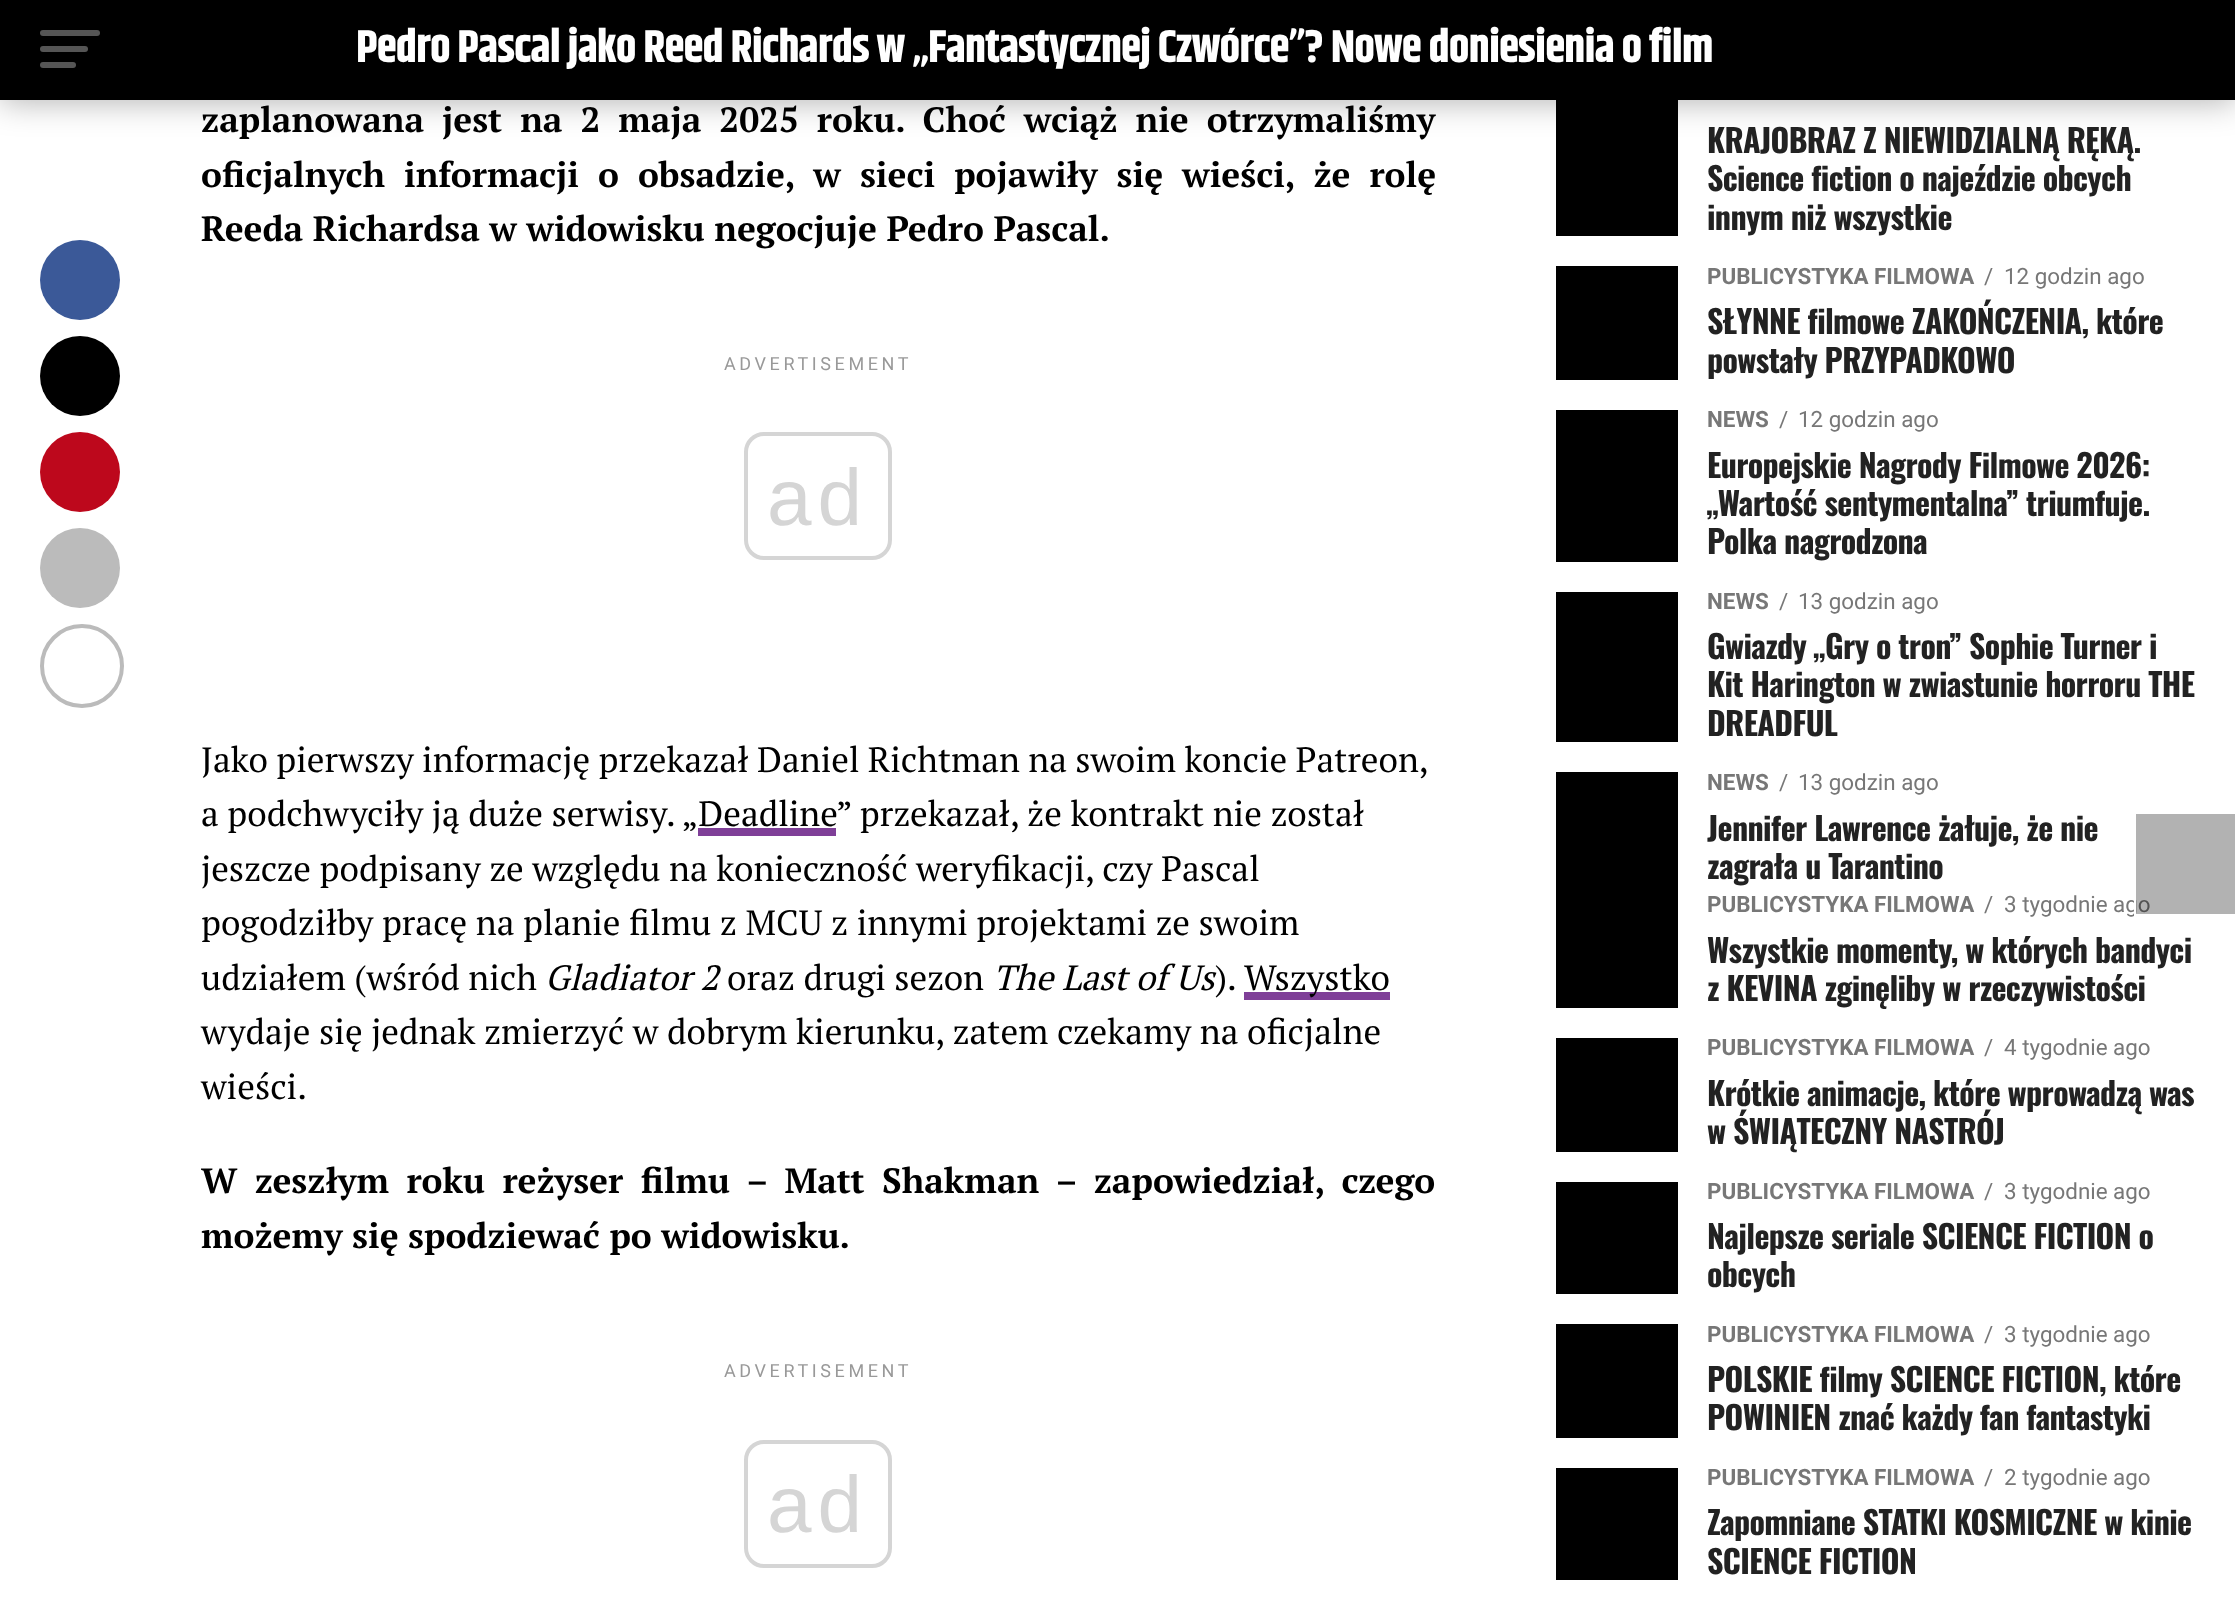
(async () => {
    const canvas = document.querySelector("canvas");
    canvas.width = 2235;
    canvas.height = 1622;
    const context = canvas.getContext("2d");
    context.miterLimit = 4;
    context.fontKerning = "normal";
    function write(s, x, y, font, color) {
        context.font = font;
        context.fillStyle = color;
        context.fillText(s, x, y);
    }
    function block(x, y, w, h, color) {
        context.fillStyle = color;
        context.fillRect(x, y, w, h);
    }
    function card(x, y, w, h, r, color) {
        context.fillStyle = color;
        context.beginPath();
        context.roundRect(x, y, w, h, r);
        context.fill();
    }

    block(0, 0, 2235, 1622, "rgb(255, 255, 255)");
    block(1556, 100, 122, 136, "rgb(0, 0, 0)");
    context.fillStyle = "rgba(0, 0, 0, 0.3)";
    context.filter = "blur(16px)";
    context.beginPath();
    context.rect(0, 2, 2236, 100);
    context.fill();
    context.filter = "none";
    block(0, 0, 2235, 100, "rgb(0, 0, 0)");
    card(40, 30, 60, 6, 3, "rgb(85, 85, 85)");
    card(40, 46, 48, 6, 3, "rgb(85, 85, 85)");
    card(40, 62, 36, 6, 3, "rgb(85, 85, 85)");
    context.letterSpacing = "-0.92px";
    write("Pedro Pascal jako Reed Richards w „Fantastycznej Czwórce”? Nowe doniesienia o film", 356, 62, "bold 46px Khand", "rgb(255, 255, 255)");
    context.fillStyle = "rgb(59, 89, 152)";
    context.beginPath();
    context.arc(80, 280, 40, 0, Math.PI * 2);
    context.fill();
    context.fillStyle = "rgb(0, 0, 0)";
    context.beginPath();
    context.arc(80, 376, 40, 0, Math.PI * 2);
    context.fill();
    context.fillStyle = "rgb(189, 8, 28)";
    context.beginPath();
    context.arc(80, 472, 40, 0, Math.PI * 2);
    context.fill();
    context.fillStyle = "rgb(187, 187, 187)";
    context.beginPath();
    context.arc(80, 568, 40, 0, Math.PI * 2);
    context.fill();
    context.beginPath();
    context.arc(82, 666, 40, 0, Math.PI * 2);
    context.strokeStyle = "rgb(187, 187, 187)";
    context.lineWidth = 4;
    context.stroke();
    context.letterSpacing = "0px";
    context.wordSpacing = "8.5px";
    write("zaplanowana jest na 2 maja 2025 roku. Choć wciąż nie otrzymaliśmy", 201, 132, "bold 35.2px PT Serif", "rgb(0, 0, 0)");
    context.wordSpacing = "9.5px";
    write("oficjalnych informacji o obsadzie, w sieci pojawiły się wieści, że rolę", 201, 187, "bold 35.2px PT Serif", "rgb(0, 0, 0)");
    context.wordSpacing = "0px";
    write("Reeda Richardsa w widowisku negocjuje Pedro Pascal.", 201, 241, "bold 35.2px PT Serif", "rgb(0, 0, 0)");
    context.letterSpacing = "3.6px";
    write("ADVERTISEMENT", 724, 370, "18px Roboto", "rgb(153, 153, 153)");
    context.beginPath();
    context.roundRect(746, 434, 144, 124, 18);
    context.strokeStyle = "rgb(213, 213, 213)";
    context.stroke();
    context.letterSpacing = "6px";
    write("ad", 767, 525, "80px Liberation Sans", "rgb(213, 213, 213)");
    context.letterSpacing = "0px";
    context.wordSpacing = "-0.25px";
    write("Jako pierwszy informację przekazał Daniel Richtman na swoim koncie Patreon,", 201, 772, "35.2px PT Serif", "rgb(0, 0, 0)");
    context.wordSpacing = "0px";
    write("a podchwyciły ją duże serwisy. „Deadline", 201, 826, "35.2px PT Serif", "rgb(0, 0, 0)");
    write("” przekazał, że kontrakt nie został", 836, 826, "35.2px PT Serif", "rgb(0, 0, 0)");
    block(698, 828, 138, 8, "rgb(127, 63, 152)");
    write("jeszcze podpisany ze względu na konieczność weryfikacji, czy Pascal", 201, 881, "35.2px PT Serif", "rgb(0, 0, 0)");
    write("pogodziłby pracę na planie filmu z MCU z innymi projektami ze swoim", 201, 935, "35.2px PT Serif", "rgb(0, 0, 0)");
    write("udziałem (wśród nich", 201, 990, "35.2px PT Serif", "rgb(0, 0, 0)");
    write("Gladiator 2", 545, 990, "italic 35.2px PT Serif", "rgb(0, 0, 0)");
    write("oraz drugi sezon", 727, 990, "35.2px PT Serif", "rgb(0, 0, 0)");
    write("The Last of Us", 993, 990, "italic 35.2px PT Serif", "rgb(0, 0, 0)");
    write(").", 1215, 990, "35.2px PT Serif", "rgb(0, 0, 0)");
    block(1244, 992, 146, 8, "rgb(127, 63, 152)");
    write("Wszystko", 1244, 990, "35.2px PT Serif", "rgb(0, 0, 0)");
    write("wydaje się jednak zmierzyć w dobrym kierunku, zatem czekamy na oficjalne", 201, 1044, "35.2px PT Serif", "rgb(0, 0, 0)");
    write("wieści.", 201, 1099, "35.2px PT Serif", "rgb(0, 0, 0)");
    context.wordSpacing = "8px";
    write("W zeszłym roku reżyser filmu – Matt Shakman – zapowiedział, czego", 201, 1193, "bold 35.2px PT Serif", "rgb(0, 0, 0)");
    context.wordSpacing = "0px";
    write("możemy się spodziewać po widowisku.", 201, 1248, "bold 35.2px PT Serif", "rgb(0, 0, 0)");
    context.letterSpacing = "3.6px";
    write("ADVERTISEMENT", 724, 1377, "18px Roboto", "rgb(153, 153, 153)");
    context.beginPath();
    context.roundRect(746, 1442, 144, 124, 18);
    context.stroke();
    context.letterSpacing = "6px";
    write("ad", 767, 1532, "80px Liberation Sans", "rgb(213, 213, 213)");
    context.letterSpacing = "-0.65px";
    write("KRAJOBRAZ Z NIEWIDZIALNĄ RĘKĄ.", 1707, 153, "bold 32px Oswald", "rgb(34, 34, 34)");
    write("Science fiction o najeździe obcych", 1707, 191, "bold 32px Oswald", "rgb(34, 34, 34)");
    write("innym niż wszystkie", 1707, 230, "bold 32px Oswald", "rgb(34, 34, 34)");
    block(1556, 266, 122, 114, "rgb(0, 0, 0)");
    context.letterSpacing = "0px";
    write("PUBLICYSTYKA FILMOWA", 1707, 284, "bold 22.4px Roboto", "rgb(119, 119, 119)");
    write("/", 1984, 284, "22.4px Roboto", "rgb(119, 119, 119)");
    write("12 godzin ago", 2004, 284, "22.4px Roboto", "rgb(119, 119, 119)");
    context.letterSpacing = "-0.65px";
    write("SŁYNNE filmowe ZAKOŃCZENIA, które", 1707, 334, "bold 32px Oswald", "rgb(34, 34, 34)");
    write("powstały PRZYPADKOWO", 1707, 373, "bold 32px Oswald", "rgb(34, 34, 34)");
    block(1556, 410, 122, 152, "rgb(0, 0, 0)");
    context.letterSpacing = "0px";
    write("NEWS", 1707, 427, "bold 22.4px Roboto", "rgb(119, 119, 119)");
    write("/", 1779, 427, "22.4px Roboto", "rgb(119, 119, 119)");
    write("12 godzin ago", 1798, 427, "22.4px Roboto", "rgb(119, 119, 119)");
    context.letterSpacing = "-0.65px";
    write("Europejskie Nagrody Filmowe 2026:", 1707, 478, "bold 32px Oswald", "rgb(34, 34, 34)");
    write("„Wartość sentymentalna” triumfuje.", 1707, 516, "bold 32px Oswald", "rgb(34, 34, 34)");
    write("Polka nagrodzona", 1707, 554, "bold 32px Oswald", "rgb(34, 34, 34)");
    block(1556, 592, 122, 150, "rgb(0, 0, 0)");
    context.letterSpacing = "0px";
    write("NEWS", 1707, 609, "bold 22.4px Roboto", "rgb(119, 119, 119)");
    write("/", 1779, 609, "22.4px Roboto", "rgb(119, 119, 119)");
    write("13 godzin ago", 1798, 609, "22.4px Roboto", "rgb(119, 119, 119)");
    context.letterSpacing = "-0.65px";
    write("Gwiazdy „Gry o tron” Sophie Turner i", 1707, 659, "bold 32px Oswald", "rgb(34, 34, 34)");
    write("Kit Harington w zwiastunie horroru THE", 1707, 697, "bold 32px Oswald", "rgb(34, 34, 34)");
    write("DREADFUL", 1707, 736, "bold 32px Oswald", "rgb(34, 34, 34)");
    block(1556, 772, 122, 236, "rgb(0, 0, 0)");
    context.letterSpacing = "0px";
    write("NEWS", 1707, 790, "bold 22.4px Roboto", "rgb(119, 119, 119)");
    write("/", 1779, 790, "22.4px Roboto", "rgb(119, 119, 119)");
    write("13 godzin ago", 1798, 790, "22.4px Roboto", "rgb(119, 119, 119)");
    context.letterSpacing = "-0.65px";
    write("Jennifer Lawrence żałuje, że nie", 1707, 841, "bold 32px Oswald", "rgb(34, 34, 34)");
    write("zagrała u Tarantino", 1707, 879, "bold 32px Oswald", "rgb(34, 34, 34)");
    context.letterSpacing = "0px";
    write("PUBLICYSTYKA FILMOWA", 1707, 912, "bold 22.4px Roboto", "rgb(119, 119, 119)");
    write("/", 1984, 912, "22.4px Roboto", "rgb(119, 119, 119)");
    write("3 tygodnie ago", 2004, 912, "22.4px Roboto", "rgb(119, 119, 119)");
    context.letterSpacing = "-0.65px";
    write("Wszystkie momenty, w których bandyci", 1707, 963, "bold 32px Oswald", "rgb(34, 34, 34)");
    write("z KEVINA zginęliby w rzeczywistości", 1707, 1001, "bold 32px Oswald", "rgb(34, 34, 34)");
    block(1556, 1038, 122, 114, "rgb(0, 0, 0)");
    context.letterSpacing = "0px";
    write("PUBLICYSTYKA FILMOWA", 1707, 1055, "bold 22.4px Roboto", "rgb(119, 119, 119)");
    write("/", 1984, 1055, "22.4px Roboto", "rgb(119, 119, 119)");
    write("4 tygodnie ago", 2004, 1055, "22.4px Roboto", "rgb(119, 119, 119)");
    context.letterSpacing = "-0.65px";
    write("Krótkie animacje, które wprowadzą was", 1707, 1106, "bold 32px Oswald", "rgb(34, 34, 34)");
    write("w ŚWIĄTECZNY NASTRÓJ", 1707, 1144, "bold 32px Oswald", "rgb(34, 34, 34)");
    block(1556, 1182, 122, 112, "rgb(0, 0, 0)");
    context.letterSpacing = "0px";
    write("PUBLICYSTYKA FILMOWA", 1707, 1199, "bold 22.4px Roboto", "rgb(119, 119, 119)");
    write("/", 1984, 1199, "22.4px Roboto", "rgb(119, 119, 119)");
    write("3 tygodnie ago", 2004, 1199, "22.4px Roboto", "rgb(119, 119, 119)");
    context.letterSpacing = "-0.65px";
    write("Najlepsze seriale SCIENCE FICTION o", 1707, 1249, "bold 32px Oswald", "rgb(34, 34, 34)");
    write("obcych", 1707, 1287, "bold 32px Oswald", "rgb(34, 34, 34)");
    block(1556, 1324, 122, 114, "rgb(0, 0, 0)");
    context.letterSpacing = "0px";
    write("PUBLICYSTYKA FILMOWA", 1707, 1342, "bold 22.4px Roboto", "rgb(119, 119, 119)");
    write("/", 1984, 1342, "22.4px Roboto", "rgb(119, 119, 119)");
    write("3 tygodnie ago", 2004, 1342, "22.4px Roboto", "rgb(119, 119, 119)");
    context.letterSpacing = "-0.65px";
    write("POLSKIE filmy SCIENCE FICTION, które", 1707, 1392, "bold 32px Oswald", "rgb(34, 34, 34)");
    write("POWINIEN znać każdy fan fantastyki", 1707, 1430, "bold 32px Oswald", "rgb(34, 34, 34)");
    block(1556, 1468, 122, 112, "rgb(0, 0, 0)");
    context.letterSpacing = "0px";
    write("PUBLICYSTYKA FILMOWA", 1707, 1485, "bold 22.4px Roboto", "rgb(119, 119, 119)");
    write("/", 1984, 1485, "22.4px Roboto", "rgb(119, 119, 119)");
    write("2 tygodnie ago", 2004, 1485, "22.4px Roboto", "rgb(119, 119, 119)");
    context.letterSpacing = "-0.65px";
    write("Zapomniane STATKI KOSMICZNE w kinie", 1707, 1535, "bold 32px Oswald", "rgb(34, 34, 34)");
    write("SCIENCE FICTION", 1707, 1574, "bold 32px Oswald", "rgb(34, 34, 34)");
    block(2136, 814, 99, 100, "rgba(0, 0, 0, 0.3)");
    block(2134, 900, 2, 16, "rgb(255, 255, 255)");
})();
